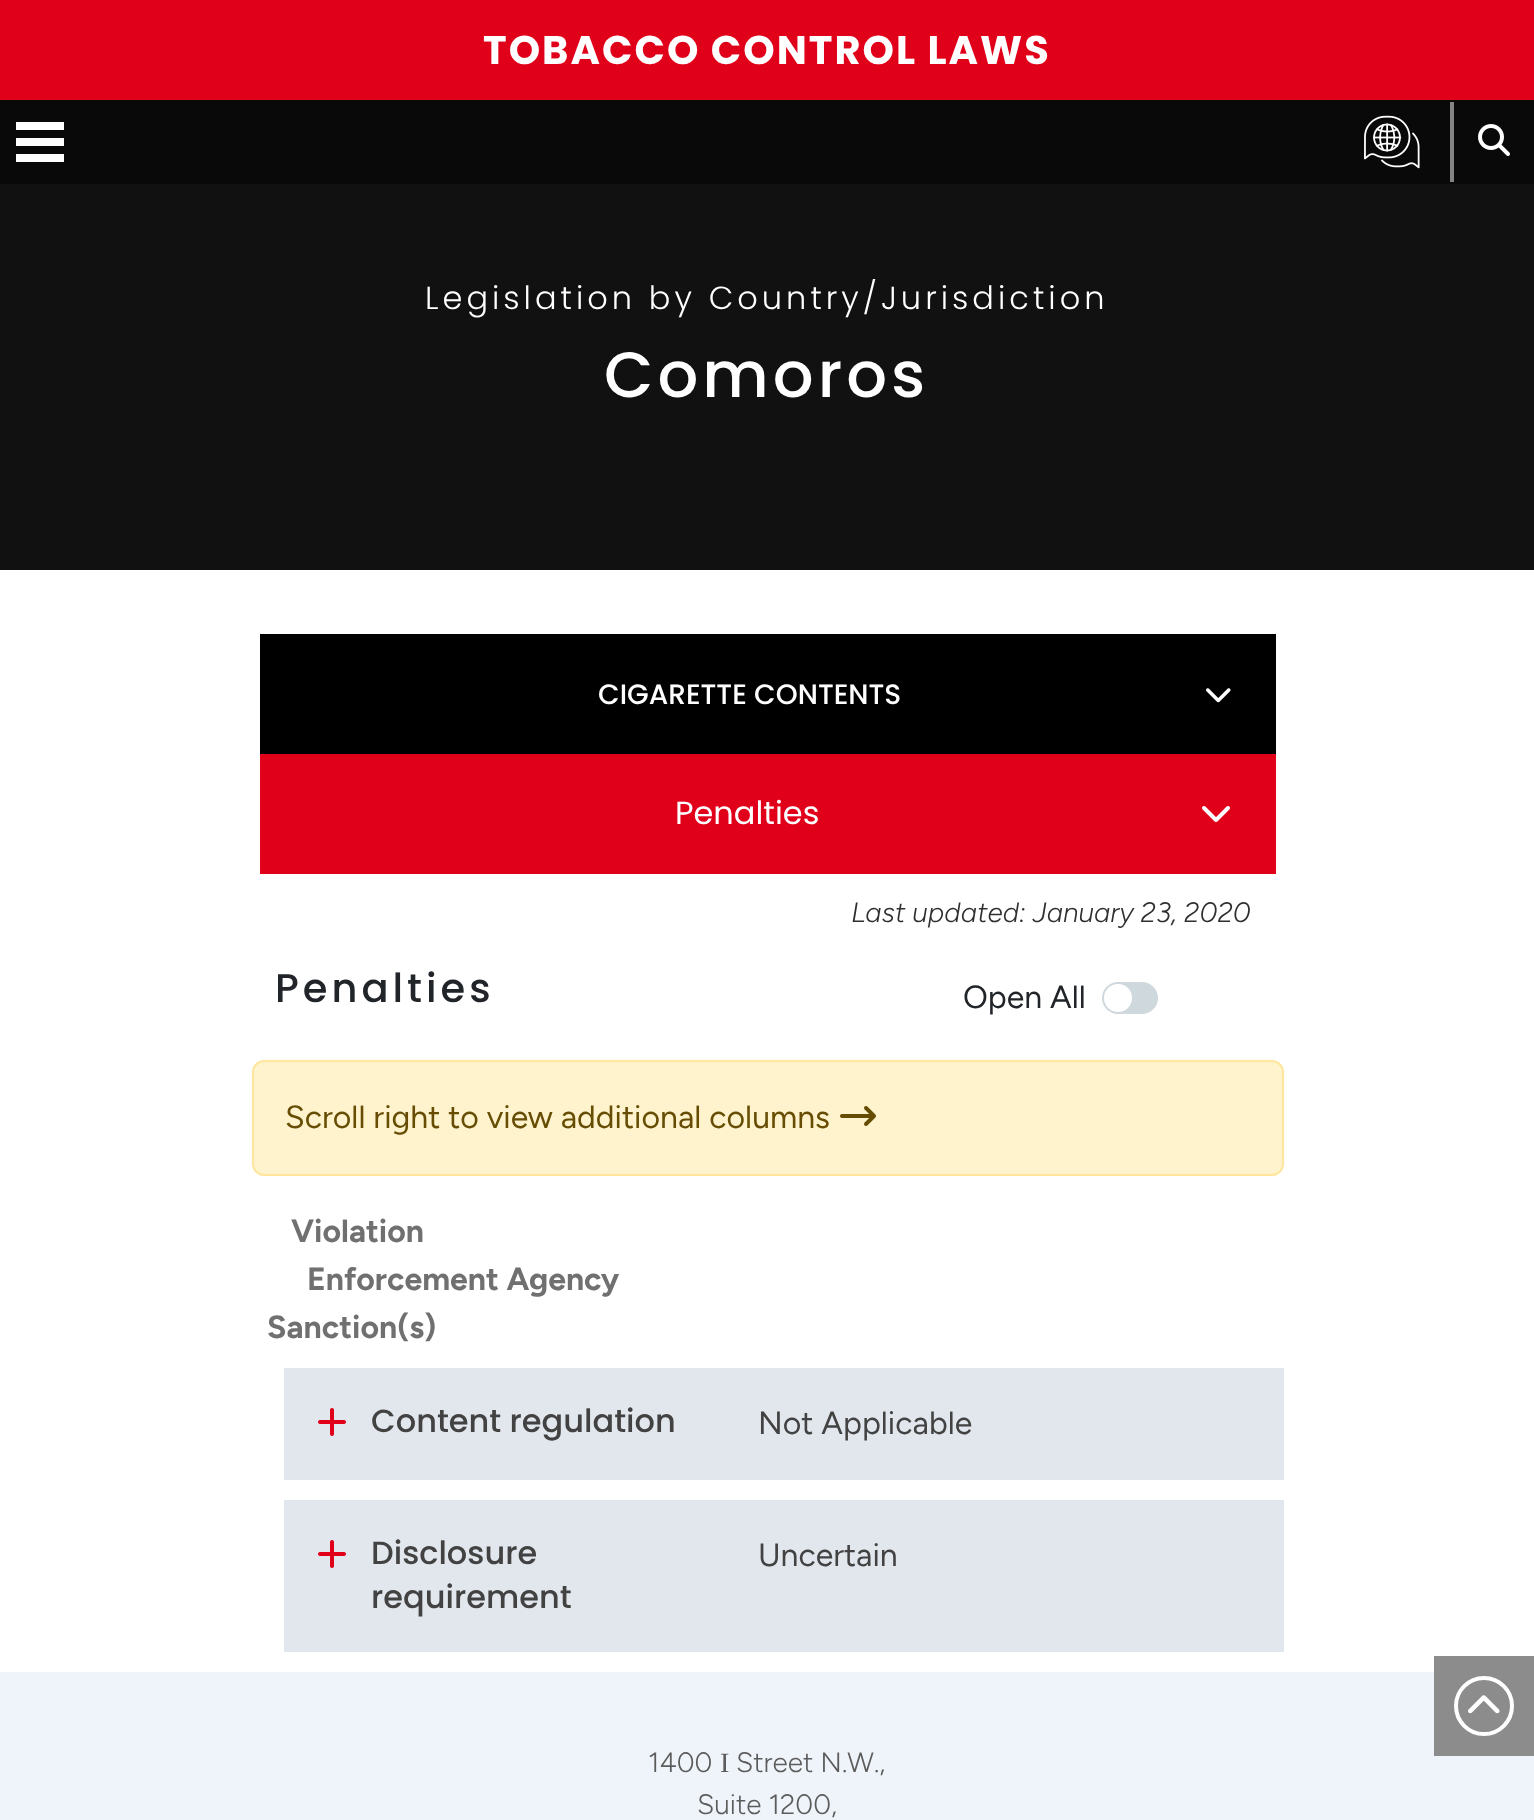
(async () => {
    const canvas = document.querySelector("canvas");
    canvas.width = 1534;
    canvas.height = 1820;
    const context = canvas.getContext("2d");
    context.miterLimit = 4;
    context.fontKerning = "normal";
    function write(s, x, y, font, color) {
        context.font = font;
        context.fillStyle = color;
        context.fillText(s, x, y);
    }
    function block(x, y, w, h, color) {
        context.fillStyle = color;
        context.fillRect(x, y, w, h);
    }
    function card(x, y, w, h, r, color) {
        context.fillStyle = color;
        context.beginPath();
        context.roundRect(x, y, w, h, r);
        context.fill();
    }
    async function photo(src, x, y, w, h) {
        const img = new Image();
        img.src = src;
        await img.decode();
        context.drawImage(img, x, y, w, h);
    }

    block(0, 0, 1534, 1820, "rgb(255, 255, 255)");
    block(0, 100, 1534, 84, "rgb(9, 9, 9)");
    block(0, 0, 1534, 100, "rgb(225, 0, 26)");
    context.letterSpacing = "2px";
    write("TOBACCO CONTROL LAWS", 483, 64, "bold 40px Poppins", "rgb(255, 255, 255)");
    block(16, 122, 48, 8, "rgb(255, 255, 255)");
    block(16, 138, 48, 8, "rgb(255, 255, 255)");
    block(16, 154, 48, 8, "rgb(255, 255, 255)");
    await photo("media/1.png", 1364, 115, 56, 54);
    block(1450, 102, 4, 80, "rgb(132, 132, 132)");
    await photo("media/2.png", 1478, 124, 32, 32);
    block(0, 184, 1534, 386, "rgb(17, 17, 17)");
    context.letterSpacing = "4px";
    write("Legislation by Country/Jurisdiction", 425, 309, "300 32px Poppins", "rgb(255, 255, 255)");
    write("Comoros", 604, 397, "500 64px Poppins", "rgb(255, 255, 255)");
    block(260, 634, 1016, 120, "rgb(0, 0, 0)");
    context.letterSpacing = "0px";
    write("CIGARETTE CONTENTS", 598, 704, "500 28px Poppins", "rgb(255, 255, 255)");
    await photo("media/3.png", 1206, 688, 25, 15);
    block(260, 754, 1016, 120, "rgb(225, 0, 26)");
    write("Penalties", 675, 824, "32px Poppins", "rgb(255, 255, 255)");
    await photo("media/4.png", 1202, 806, 28, 16);
    write("Last updated: January 23, 2020", 851, 922, "italic 300 28px Figtree", "rgb(47, 47, 47)");
    context.letterSpacing = "4px";
    write("Penalties", 275, 1002, "500 40px Poppins", "rgb(33, 37, 41)");
    context.letterSpacing = "0px";
    write("Open All", 963, 1008, "32px Figtree", "rgb(33, 37, 41)");
    card(1102, 982, 56, 32, 16, "rgb(207, 216, 220)");
    context.fillStyle = "rgb(255, 255, 255)";
    context.beginPath();
    context.arc(1118, 998, 14, 0, Math.PI * 2);
    context.fill();
    context.fillStyle = "rgb(255, 243, 205)";
    context.beginPath();
    context.roundRect(253, 1061, 1030, 114, 11);
    context.fill();
    context.strokeStyle = "rgb(255, 230, 156)";
    context.lineWidth = 2;
    context.stroke();
    write("Scroll right to view additional columns", 285, 1128, "32px Figtree", "rgb(102, 77, 3)");
    await photo("media/5.png", 840, 1106, 36, 20);
    write("Violation", 291, 1242, "bold 32px Figtree", "rgb(112, 112, 112)");
    write("Enforcement Agency", 307, 1290, "bold 32px Figtree", "rgb(112, 112, 112)");
    write("Sanction(s)", 267, 1338, "bold 32px Figtree", "rgb(112, 112, 112)");
    block(284, 1368, 1000, 112, "rgb(226, 231, 237)");
    await photo("media/6.png", 318, 1408, 28, 28);
    write("Content regulation", 371, 1432, "500 32px Poppins", "rgb(66, 66, 66)");
    write("Not Applicable", 758, 1434, "32px Figtree", "rgb(66, 66, 66)");
    block(284, 1500, 1000, 152, "rgb(226, 231, 237)");
    await photo("media/6.png", 318, 1540, 28, 28);
    write("Disclosure", 371, 1564, "500 32px Poppins", "rgb(66, 66, 66)");
    write("requirement", 371, 1608, "500 32px Poppins", "rgb(66, 66, 66)");
    write("Uncertain", 758, 1566, "32px Figtree", "rgb(66, 66, 66)");
    block(0, 1672, 1534, 148, "rgb(239, 244, 250)");
    block(1434, 1656, 100, 100, "rgb(139, 140, 139)");
    context.beginPath();
    context.arc(1484, 1706, 28, 0, Math.PI * 2);
    context.strokeStyle = "rgb(255, 255, 255)";
    context.lineWidth = 4;
    context.stroke();
    await photo("media/7.png", 1468, 1695, 32, 19);
    write("1400", 648, 1772, "300 28px Figtree", "rgb(92, 92, 92)");
    write("I", 720, 1772, "28px Liberation Serif", "rgb(92, 92, 92)");
    write("Street N.W.,", 736, 1772, "300 28px Figtree", "rgb(92, 92, 92)");
    write("Suite 1200,", 697, 1814, "300 28px Figtree", "rgb(92, 92, 92)");
})();
